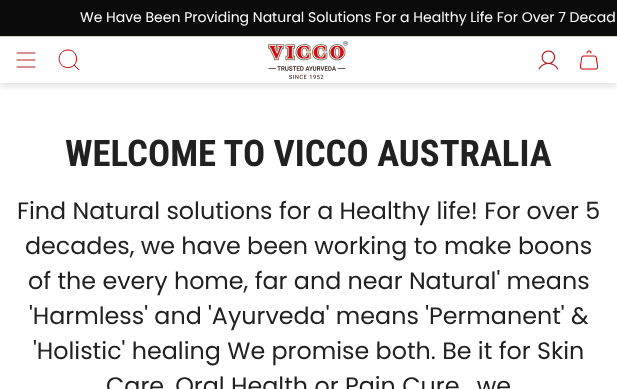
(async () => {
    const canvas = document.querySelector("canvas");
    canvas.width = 617;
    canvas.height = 389;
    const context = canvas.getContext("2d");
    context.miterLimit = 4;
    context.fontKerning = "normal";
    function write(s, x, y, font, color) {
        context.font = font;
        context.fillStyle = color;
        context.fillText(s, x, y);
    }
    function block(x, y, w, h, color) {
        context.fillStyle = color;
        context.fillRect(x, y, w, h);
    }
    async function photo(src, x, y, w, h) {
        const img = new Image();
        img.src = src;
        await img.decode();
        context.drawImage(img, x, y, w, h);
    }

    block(0, 0, 617, 389, "rgb(255, 255, 255)");
    context.save();
    context.beginPath();
    context.rect(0, 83, 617, 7);
    context.clip();
    context.fillStyle = "rgba(0, 0, 0, 0.1)";
    context.filter = "blur(3px)";
    context.beginPath();
    context.rect(0, 41, 617, 46);
    context.fill();
    context.filter = "none";
    context.restore();
    block(0, 0, 617, 36, "rgb(11, 11, 11)");
    block(0, 36, 617, 1, "rgb(209, 205, 196)");
    write("We Have Been Providing Natural Solutions For a Healthy Life For Over 7 Decad", 80, 22, "14px Poppins", "rgb(255, 255, 255)");
    context.beginPath();
    context.moveTo(17, 53);
    context.lineTo(35, 53);
    context.moveTo(17, 60);
    context.lineTo(35, 60);
    context.moveTo(17, 67);
    context.lineTo(35, 67);
    context.strokeStyle = "rgb(179, 33, 36)";
    context.lineCap = "round";
    context.lineJoin = "round";
    context.stroke();
    context.beginPath();
    context.moveTo(68, 50);
    context.bezierCurveTo(79.5, 50, 79.5, 68, 67.5, 67.5);
    context.bezierCurveTo(56, 67, 56.5, 50, 68, 50);
    context.closePath();
    context.moveTo(74, 65);
    context.lineTo(79, 70);
    context.strokeStyle = "rgb(204, 0, 0)";
    context.lineCap = "butt";
    context.lineJoin = "miter";
    context.stroke();
    await photo("media/1.png", 268, 41, 80, 38);
    await photo("media/2.png", 538, 50, 21, 20);
    await photo("media/3.png", 579, 50, 20, 20);
    write("WELCOME TO VICCO AUSTRALIA", 65, 166, "bold 36.75px Roboto Condensed", "rgb(33, 33, 33)");
    write("Find Natural solutions for a Healthy life! For over 5", 17, 219, "23.8px Poppins", "rgb(33, 33, 33)");
    write("decades, we have been working to make boons", 25, 254, "23.8px Poppins", "rgb(33, 33, 33)");
    write("of the every home, far and near Natural' means", 28, 289, "23.8px Poppins", "rgb(33, 33, 33)");
    write("'Harmless' and 'Ayurveda' means 'Permanent' &", 29, 324, "23.8px Poppins", "rgb(33, 33, 33)");
    write("'Holistic' healing We promise both. Be it for Skin", 33, 359, "23.8px Poppins", "rgb(33, 33, 33)");
    write("Care, Oral Health or Pain Cure,  we", 106, 394, "23.8px Poppins", "rgb(33, 33, 33)");
})();
